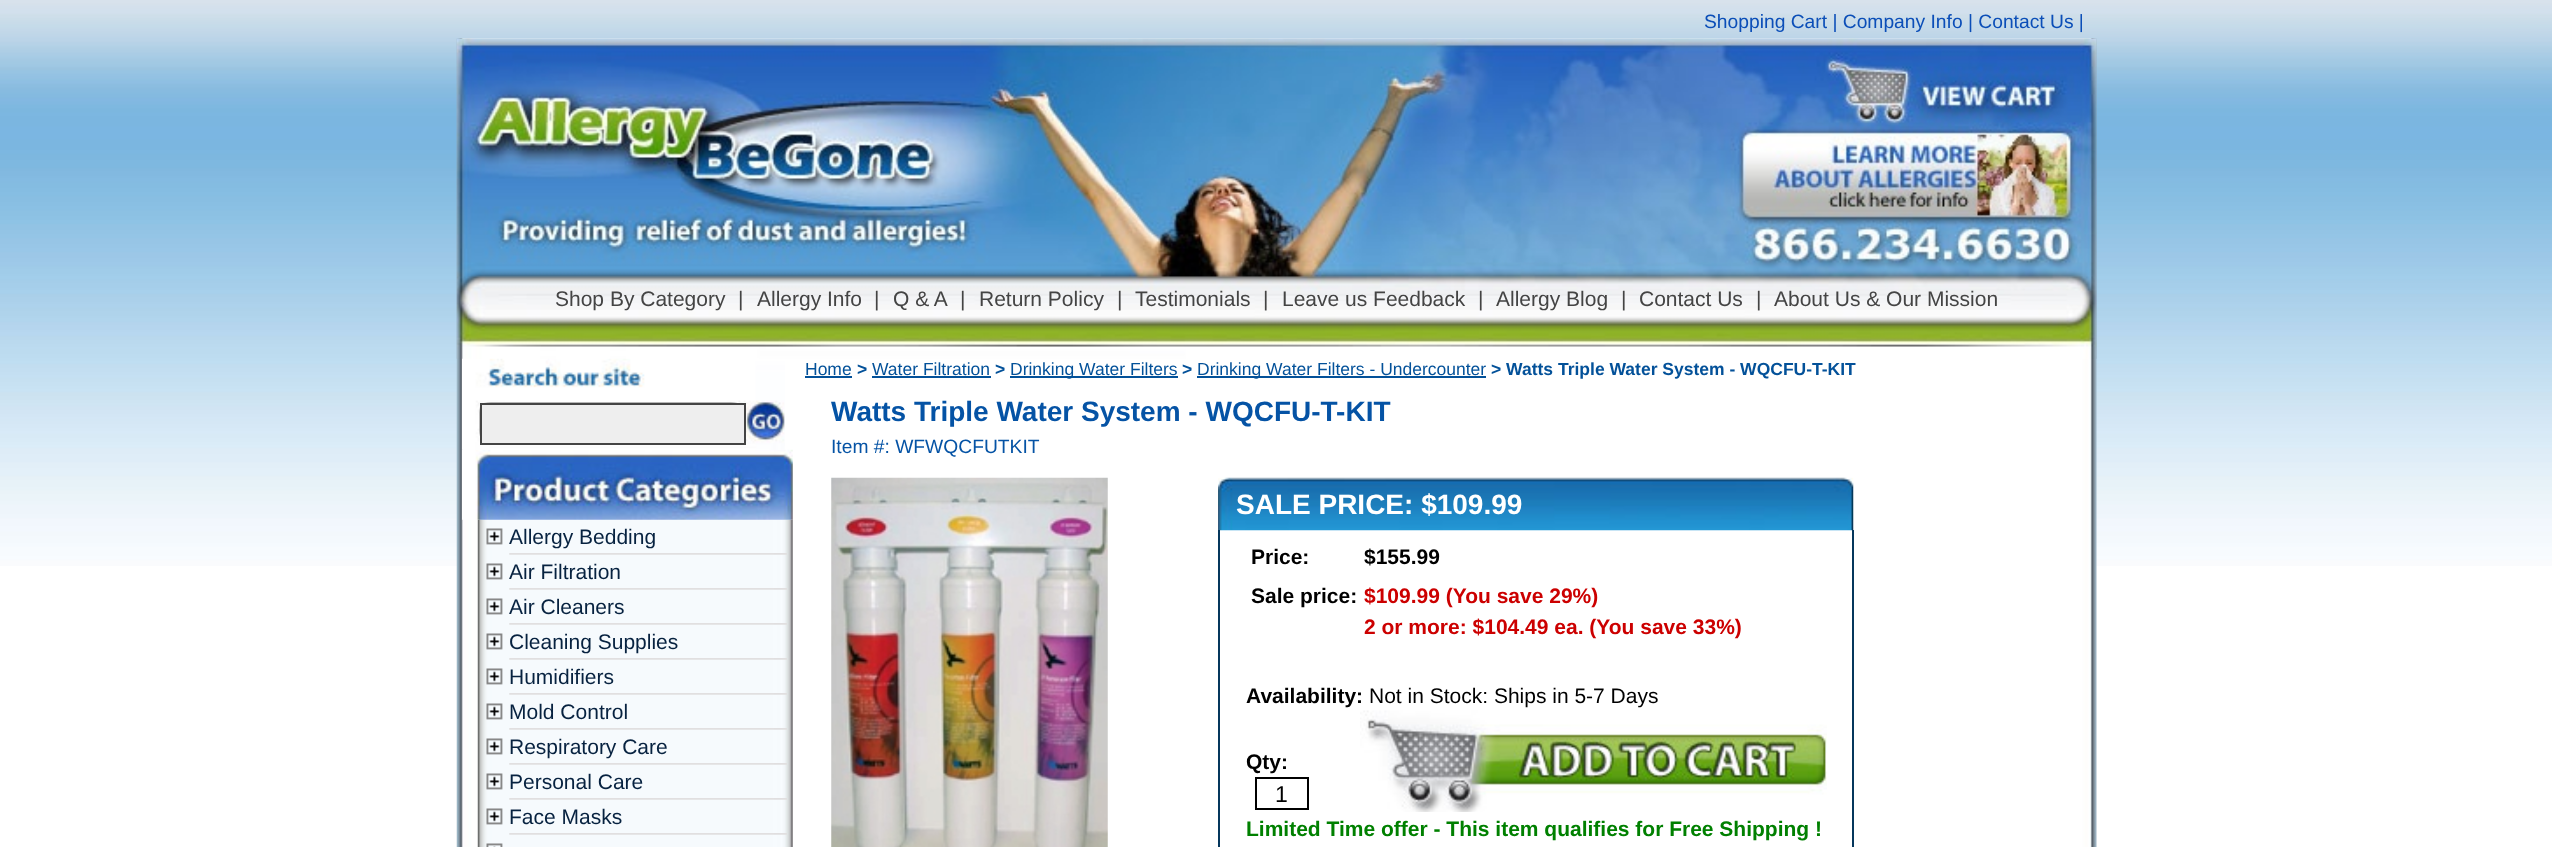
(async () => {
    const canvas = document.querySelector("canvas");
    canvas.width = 2552;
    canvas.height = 847;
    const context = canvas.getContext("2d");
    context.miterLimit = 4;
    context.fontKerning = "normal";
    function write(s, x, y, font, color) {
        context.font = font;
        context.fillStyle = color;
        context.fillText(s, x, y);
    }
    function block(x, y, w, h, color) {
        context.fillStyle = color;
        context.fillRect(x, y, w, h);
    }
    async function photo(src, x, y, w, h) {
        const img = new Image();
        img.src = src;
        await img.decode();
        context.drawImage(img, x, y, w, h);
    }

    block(0, 0, 2552, 847, "rgb(255, 255, 255)");
    await photo("media/1.png", 0, 0, 2552, 566);
    write("Shopping Cart | Company Info | Contact Us |", 1704, 28, "19.25px Liberation Sans", "rgb(11, 78, 184)");
    await photo("media/2.png", 456, 38, 1641, 809);
    await photo("media/3.png", 456, 38, 1641, 321);
    write("Shop By Category", 555, 306, "21px Liberation Sans", "rgb(68, 68, 68)");
    write("|", 738, 306, "21px Liberation Sans", "rgb(68, 68, 68)");
    write("Allergy Info", 757, 306, "21px Liberation Sans", "rgb(68, 68, 68)");
    write("|", 874, 306, "21px Liberation Sans", "rgb(68, 68, 68)");
    write("Q & A", 893, 306, "21px Liberation Sans", "rgb(68, 68, 68)");
    write("|", 960, 306, "21px Liberation Sans", "rgb(68, 68, 68)");
    write("Return Policy", 979, 306, "21px Liberation Sans", "rgb(68, 68, 68)");
    write("|", 1117, 306, "21px Liberation Sans", "rgb(68, 68, 68)");
    write("Testimonials", 1135, 306, "21px Liberation Sans", "rgb(68, 68, 68)");
    write("|", 1263, 306, "21px Liberation Sans", "rgb(68, 68, 68)");
    write("Leave us Feedback", 1282, 306, "21px Liberation Sans", "rgb(68, 68, 68)");
    write("|", 1478, 306, "21px Liberation Sans", "rgb(68, 68, 68)");
    write("Allergy Blog", 1496, 306, "21px Liberation Sans", "rgb(68, 68, 68)");
    write("|", 1621, 306, "21px Liberation Sans", "rgb(68, 68, 68)");
    write("Contact Us", 1639, 306, "21px Liberation Sans", "rgb(68, 68, 68)");
    write("|", 1756, 306, "21px Liberation Sans", "rgb(68, 68, 68)");
    write("About Us & Our Mission", 1774, 306, "21px Liberation Sans", "rgb(68, 68, 68)");
    await photo("media/6.png", 477, 519, 316, 328);
    await photo("media/5.png", 462, 449, 331, 71);
    await photo("media/4.png", 462, 358, 323, 92);
    context.fillStyle = "rgb(238, 238, 238)";
    context.beginPath();
    context.rect(481, 404, 264, 40);
    context.fill();
    context.strokeStyle = "rgb(68, 68, 68)";
    context.lineWidth = 2;
    context.stroke();
    await photo("media/7.png", 509, 553, 278, 2);
    await photo("media/8.png", 486, 528, 17, 17);
    write("Allergy Bedding", 509, 544, "21px Liberation Sans", "rgb(7, 34, 64)");
    await photo("media/7.png", 509, 588, 278, 2);
    await photo("media/8.png", 486, 563, 17, 17);
    write("Air Filtration", 509, 579, "21px Liberation Sans", "rgb(7, 34, 64)");
    await photo("media/7.png", 509, 623, 278, 2);
    await photo("media/8.png", 486, 598, 17, 17);
    write("Air Cleaners", 509, 614, "21px Liberation Sans", "rgb(7, 34, 64)");
    await photo("media/7.png", 509, 658, 278, 2);
    await photo("media/8.png", 486, 633, 17, 17);
    write("Cleaning Supplies", 509, 649, "21px Liberation Sans", "rgb(7, 34, 64)");
    await photo("media/7.png", 509, 693, 278, 2);
    await photo("media/8.png", 486, 668, 17, 17);
    write("Humidifiers", 509, 684, "21px Liberation Sans", "rgb(7, 34, 64)");
    await photo("media/7.png", 509, 728, 278, 2);
    await photo("media/8.png", 486, 703, 17, 17);
    write("Mold Control", 509, 719, "21px Liberation Sans", "rgb(7, 34, 64)");
    await photo("media/7.png", 509, 763, 278, 2);
    await photo("media/8.png", 486, 738, 17, 17);
    write("Respiratory Care", 509, 754, "21px Liberation Sans", "rgb(7, 34, 64)");
    await photo("media/7.png", 509, 798, 278, 2);
    await photo("media/8.png", 486, 773, 17, 17);
    write("Personal Care", 509, 789, "21px Liberation Sans", "rgb(7, 34, 64)");
    await photo("media/7.png", 509, 833, 278, 2);
    await photo("media/8.png", 486, 808, 17, 17);
    write("Face Masks", 509, 824, "21px Liberation Sans", "rgb(7, 34, 64)");
    await photo("media/9.png", 486, 843, 17, 4);
    write("Home", 805, 375, "17.5px Liberation Sans", "rgb(3, 81, 153)");
    block(805, 376, 47, 2, "rgb(3, 81, 153)");
    write(">", 857, 375, "bold 17.5px Liberation Sans", "rgb(3, 81, 153)");
    write("Water Filtration", 872, 375, "17.5px Liberation Sans", "rgb(3, 81, 153)");
    block(872, 376, 119, 2, "rgb(3, 81, 153)");
    write(">", 995, 375, "bold 17.5px Liberation Sans", "rgb(3, 81, 153)");
    block(1010, 376, 168, 2, "rgb(3, 81, 153)");
    write("Drinking Water Filters", 1010, 375, "17.5px Liberation Sans", "rgb(3, 81, 153)");
    write(">", 1182, 375, "bold 17.5px Liberation Sans", "rgb(3, 81, 153)");
    block(1197, 376, 289, 2, "rgb(3, 81, 153)");
    write("Drinking Water Filters - Undercounter", 1197, 375, "17.5px Liberation Sans", "rgb(3, 81, 153)");
    write("> Watts Triple Water System - WQCFU-T-KIT", 1491, 375, "bold 17.5px Liberation Sans", "rgb(3, 81, 153)");
    write("Watts Triple Water System - WQCFU-T-KIT", 831, 421, "bold 28px Liberation Sans", "rgb(5, 83, 165)");
    write("Item #: WFWQCFUTKIT", 831, 453, "19.25px Liberation Sans", "rgb(5, 83, 165)");
    await photo("media/10.png", 831, 477, 277, 370);
    await photo("media/11.png", 1218, 477, 636, 54);
    write("SALE PRICE: $109.99", 1236, 514, "bold 28px Liberation Sans", "rgb(255, 255, 255)");
    block(1852, 530, 2, 317, "rgb(5, 55, 92)");
    block(1218, 530, 2, 317, "rgb(5, 55, 92)");
    write("Price:", 1251, 564, "bold 21px Liberation Sans", "rgb(0, 0, 0)");
    write("$155.99", 1364, 564, "bold 21px Liberation Sans", "rgb(0, 0, 0)");
    write("Sale price:", 1251, 603, "bold 21px Liberation Sans", "rgb(0, 0, 0)");
    write("$109.99 (You save 29%)", 1364, 603, "bold 21px Liberation Sans", "rgb(204, 0, 0)");
    write("2 or more: $104.49 ea. (You save 33%)", 1364, 634, "bold 21px Liberation Sans", "rgb(204, 0, 0)");
    write("Availability:", 1246, 703, "bold 21px Liberation Sans", "rgb(0, 0, 0)");
    write("Not in Stock: Ships in 5-7 Days", 1369, 703, "21px Liberation Sans", "rgb(0, 0, 0)");
    write("Qty:", 1246, 769, "bold 21px Liberation Sans", "rgb(0, 0, 0)");
    context.strokeStyle = "rgb(0, 0, 0)";
    context.strokeRect(1256, 778, 52, 31);
    write("1", 1275, 802, "23px Liberation Sans", "rgb(0, 0, 0)");
    await photo("media/12.png", 1360, 710, 467, 102);
    write("Limited Time offer - This item qualifies for Free Shipping !", 1246, 836, "bold 21px Liberation Sans", "rgb(0, 128, 0)");
})();
